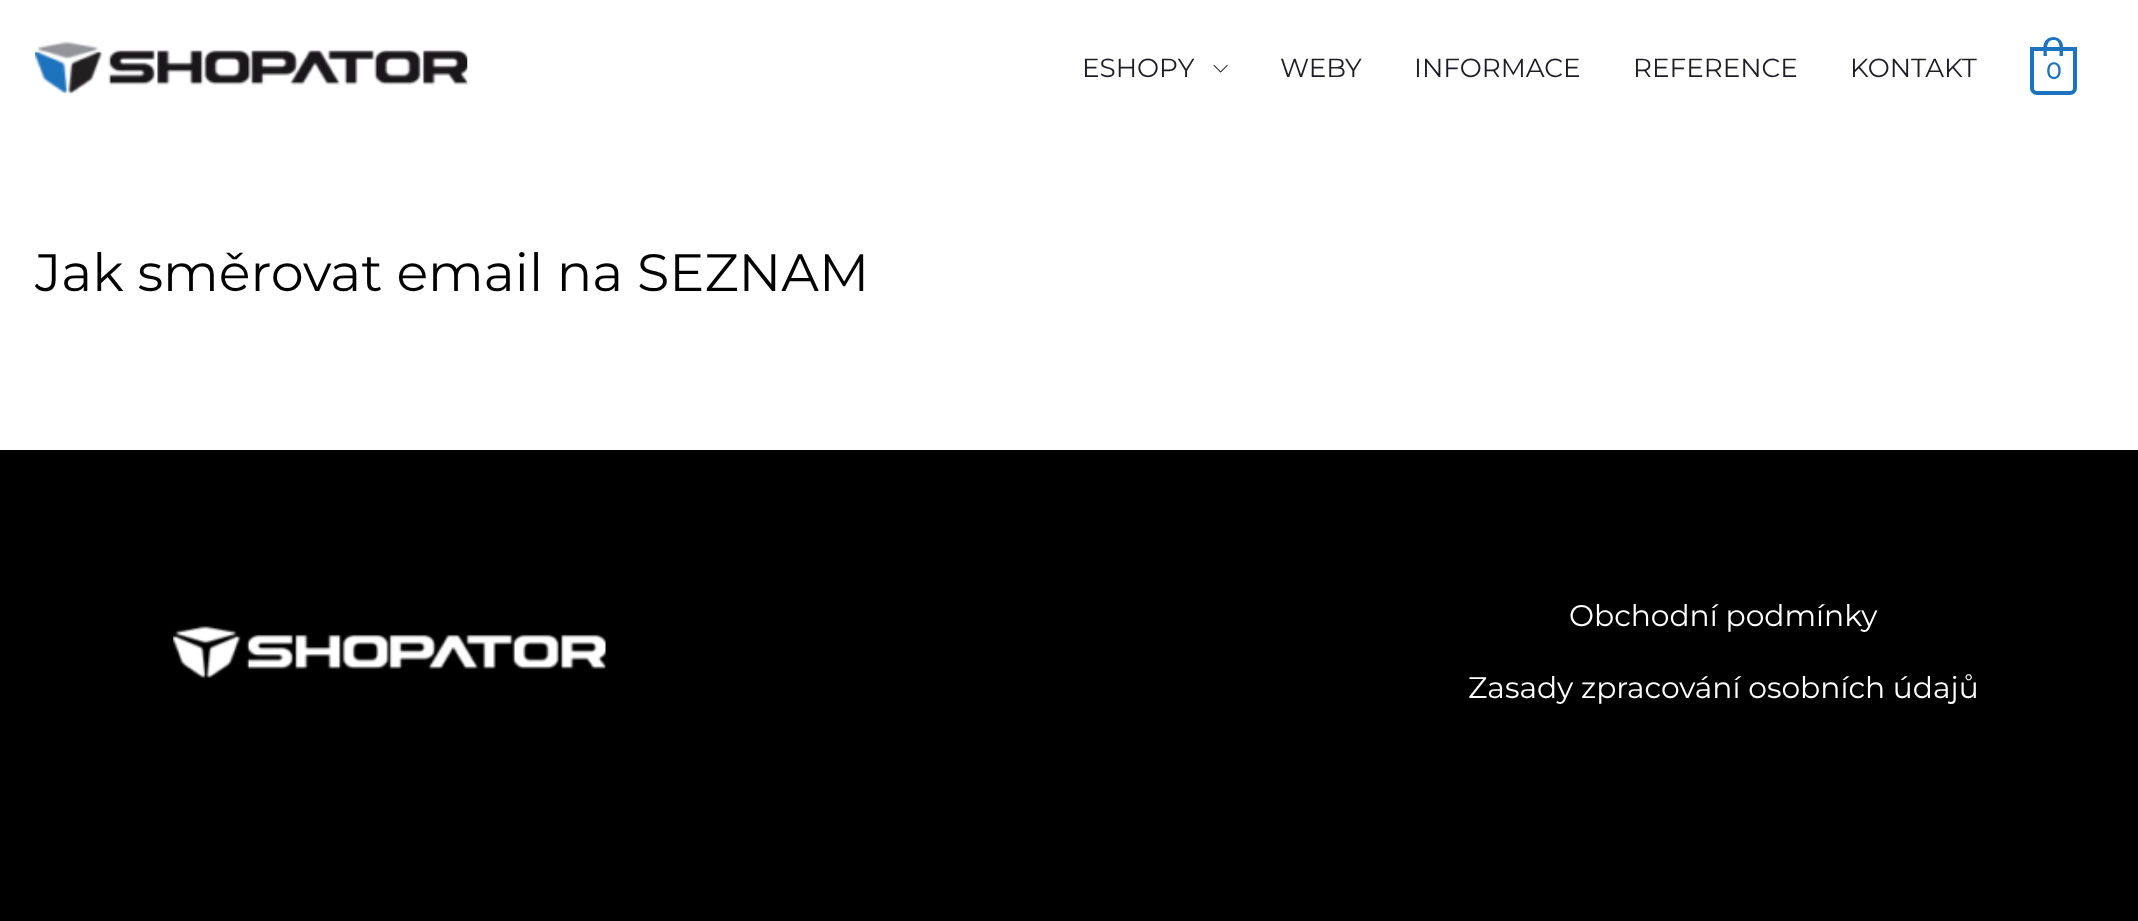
(async () => {
    const canvas = document.querySelector("canvas");
    canvas.width = 2138;
    canvas.height = 921;
    const context = canvas.getContext("2d");
    context.miterLimit = 4;
    context.fontKerning = "normal";
    function write(s, x, y, font, color) {
        context.font = font;
        context.fillStyle = color;
        context.fillText(s, x, y);
    }
    function block(x, y, w, h, color) {
        context.fillStyle = color;
        context.fillRect(x, y, w, h);
    }
    async function photo(src, x, y, w, h) {
        const img = new Image();
        img.src = src;
        await img.decode();
        context.drawImage(img, x, y, w, h);
    }

    block(0, 0, 2138, 921, "rgb(255, 255, 255)");
    await photo("media/1.png", 35, 41, 433, 53);
    write("ESHOPY", 1082, 77, "100 26.25px Montserrat", "rgb(29, 29, 35)");
    await photo("media/2.png", 1213, 64, 15, 9);
    write("WEBY", 1280, 77, "100 26.25px Montserrat", "rgb(29, 29, 35)");
    write("INFORMACE", 1414, 77, "100 26.25px Montserrat", "rgb(29, 29, 35)");
    write("REFERENCE", 1633, 77, "100 26.25px Montserrat", "rgb(29, 29, 35)");
    write("KONTAKT", 1850, 77, "100 26.25px Montserrat", "rgb(29, 29, 35)");
    context.beginPath();
    context.roundRect(2032, 49, 43, 44, [0, 0, 5, 5]);
    context.strokeStyle = "rgb(30, 115, 190)";
    context.lineWidth = 4;
    context.stroke();
    context.fillStyle = "rgb(30, 115, 190)";
    context.beginPath();
    context.moveTo(2053.5, 37);
    context.bezierCurveTo(2058.5, 37, 2063, 41, 2063, 46.5);
    context.lineTo(2063, 56);
    context.lineTo(2043.5, 56);
    context.lineTo(2043.5, 46.5);
    context.bezierCurveTo(2043.5, 41, 2048, 37, 2053.5, 37);
    context.closePath();
    context.moveTo(2053.5, 40);
    context.bezierCurveTo(2061.5, 40, 2059.5, 51, 2059.5, 56);
    context.lineTo(2047, 56);
    context.bezierCurveTo(2047, 51, 2045.5, 40, 2053.5, 40);
    context.closePath();
    context.fill("evenodd");
    write("0", 2046, 79, "bold 23px Montserrat", "rgb(30, 115, 190)");
    write("Jak směrovat email na SEZNAM", 35, 291, "100 52.5px Montserrat", "rgb(0, 0, 0)");
    block(0, 450, 2138, 471, "rgb(0, 0, 0)");
    await photo("media/3.png", 173, 626, 433, 52);
    write("Obchodní podmínky", 1569, 626, "100 29.75px Montserrat", "rgb(255, 255, 255)");
    write("Zasady zpracování osobních údajů", 1468, 698, "100 29.75px Montserrat", "rgb(255, 255, 255)");
})();
